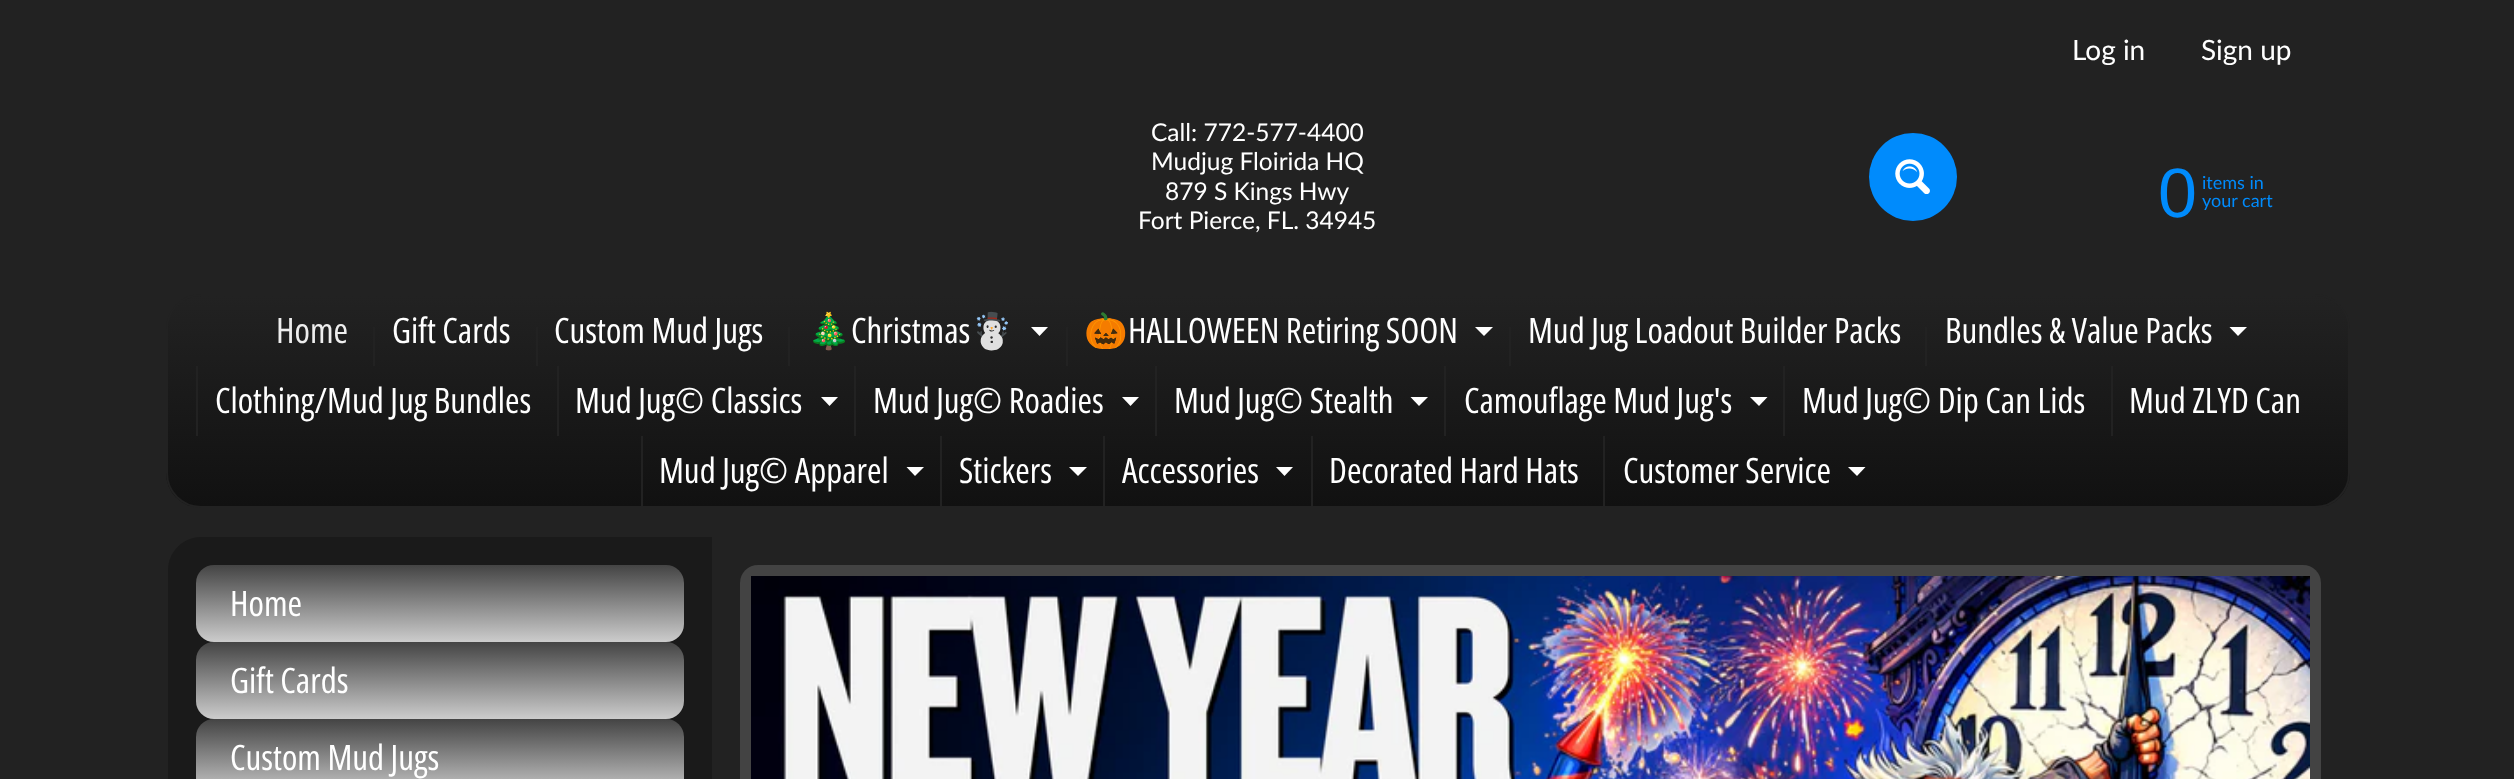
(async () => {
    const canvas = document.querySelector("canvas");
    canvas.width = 2514;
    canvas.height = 779;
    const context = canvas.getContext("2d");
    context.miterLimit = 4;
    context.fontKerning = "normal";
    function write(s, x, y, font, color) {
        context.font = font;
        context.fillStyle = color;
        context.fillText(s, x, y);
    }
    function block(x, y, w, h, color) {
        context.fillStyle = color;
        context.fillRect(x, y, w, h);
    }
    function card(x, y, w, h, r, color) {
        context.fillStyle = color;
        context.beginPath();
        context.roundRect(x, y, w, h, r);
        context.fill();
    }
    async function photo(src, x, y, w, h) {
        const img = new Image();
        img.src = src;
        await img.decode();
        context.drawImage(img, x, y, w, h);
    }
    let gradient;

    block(0, 0, 2514, 779, "rgb(34, 34, 34)");
    write("Call: 772-577-4400", 1151, 141, "24.5px Lato", "rgb(255, 255, 255)");
    write("Mudjug Floirida HQ", 1151, 170, "24.5px Lato", "rgb(255, 255, 255)");
    write("879 S Kings Hwy", 1165, 200, "24.5px Lato", "rgb(255, 255, 255)");
    write("Fort Pierce, FL. 34945", 1138, 229, "24.5px Lato", "rgb(255, 255, 255)");
    write("Log in", 2072, 60, "28px Lato", "rgb(255, 255, 255)");
    write("Sign up", 2201, 60, "28px Lato", "rgb(255, 255, 255)");
    context.fillStyle = "rgb(0, 139, 252)";
    context.beginPath();
    context.arc(1913, 177, 44, 0, Math.PI * 2);
    context.fill();
    await photo("media/1.png", 1895, 159, 35, 35);
    write("0", 2158, 217, "70px Liberation Sans", "rgb(0, 139, 252)");
    write("items in", 2202, 189, "18px Lato", "rgb(0, 139, 252)");
    write("your cart", 2202, 207, "18px Lato", "rgb(0, 139, 252)");
    context.save();
    context.beginPath();
    context.roundRect(166, 294, 2184, 214, 35);
    context.clip();
    gradient = context.createLinearGradient(1258, 296, 1258, 506);
    gradient.addColorStop(0, "rgb(34, 34, 34)");
    gradient.addColorStop(1, "rgb(17, 17, 17)");
    context.fillStyle = gradient;
    context.fillRect(166, 296, 2184, 210);
    context.restore();
    context.beginPath();
    context.roundRect(167, 295, 2182, 212, 34);
    context.strokeStyle = "rgb(34, 34, 34)";
    context.lineWidth = 2;
    context.stroke();
    write("Home", 276, 343, "35px Open Sans Condensed", "rgb(238, 238, 238)");
    block(373, 327, 2, 39, "rgb(34, 34, 34)");
    write("Gift Cards", 392, 343, "35px Open Sans Condensed", "rgb(255, 255, 255)");
    block(536, 327, 2, 39, "rgb(34, 34, 34)");
    write("Custom Mud Jugs", 554, 343, "35px Open Sans Condensed", "rgb(255, 255, 255)");
    block(788, 327, 2, 39, "rgb(34, 34, 34)");
    write("🎄", 807, 343, "35px Noto Color Emoji", "rgb(255, 255, 255)");
    write("Christmas", 851, 343, "35px Open Sans Condensed", "rgb(255, 255, 255)");
    write("☃️", 970, 343, "35px Noto Color Emoji", "rgb(255, 255, 255)");
    context.beginPath();
    context.moveTo(1031, 327);
    context.lineTo(1048, 327);
    context.lineTo(1039.5, 336);
    context.closePath();
    context.fill();
    block(1066, 327, 2, 39, "rgb(34, 34, 34)");
    write("🎃", 1084, 343, "35px Noto Color Emoji", "rgb(255, 255, 255)");
    write("HALLOWEEN Retiring SOON", 1128, 343, "35px Open Sans Condensed", "rgb(255, 255, 255)");
    context.beginPath();
    context.moveTo(1475, 327);
    context.lineTo(1493, 327);
    context.lineTo(1484, 336);
    context.closePath();
    context.fill();
    block(1509, 327, 2, 39, "rgb(34, 34, 34)");
    write("Mud Jug Loadout Builder Packs", 1528, 343, "35px Open Sans Condensed", "rgb(255, 255, 255)");
    block(1925, 327, 2, 39, "rgb(34, 34, 34)");
    write("Bundles & Value Packs", 1945, 343, "35px Open Sans Condensed", "rgb(255, 255, 255)");
    context.beginPath();
    context.moveTo(2229.5, 327);
    context.lineTo(2247, 327);
    context.lineTo(2238, 336);
    context.closePath();
    context.fill();
    block(196, 366, 2, 70, "rgb(34, 34, 34)");
    write("Clothing/Mud Jug Bundles", 215, 413, "35px Open Sans Condensed", "rgb(255, 255, 255)");
    block(557, 366, 2, 70, "rgb(34, 34, 34)");
    write("Mud Jug© Classics", 575, 413, "35px Open Sans Condensed", "rgb(255, 255, 255)");
    context.beginPath();
    context.moveTo(821, 397);
    context.lineTo(838, 397);
    context.lineTo(829.5, 406);
    context.closePath();
    context.fill();
    block(854, 366, 2, 70, "rgb(34, 34, 34)");
    write("Mud Jug© Roadies", 873, 413, "35px Open Sans Condensed", "rgb(255, 255, 255)");
    context.beginPath();
    context.moveTo(1122, 397);
    context.lineTo(1139, 397);
    context.lineTo(1130.5, 406);
    context.closePath();
    context.fill();
    block(1155, 366, 2, 70, "rgb(34, 34, 34)");
    write("Mud Jug© Stealth", 1174, 413, "35px Open Sans Condensed", "rgb(255, 255, 255)");
    context.beginPath();
    context.moveTo(1410.5, 397);
    context.lineTo(1428, 397);
    context.lineTo(1419, 406);
    context.closePath();
    context.fill();
    block(1444, 366, 2, 70, "rgb(34, 34, 34)");
    write("Camouflage Mud Jug's", 1464, 413, "35px Open Sans Condensed", "rgb(255, 255, 255)");
    context.beginPath();
    context.moveTo(1750, 397);
    context.lineTo(1767.5, 397);
    context.lineTo(1759, 406);
    context.closePath();
    context.fill();
    block(1783, 366, 2, 70, "rgb(34, 34, 34)");
    write("Mud Jug© Dip Can Lids", 1802, 413, "35px Open Sans Condensed", "rgb(255, 255, 255)");
    block(2111, 366, 2, 70, "rgb(34, 34, 34)");
    write("Mud ZLYD Can", 2129, 413, "35px Open Sans Condensed", "rgb(255, 255, 255)");
    block(641, 436, 2, 70, "rgb(34, 34, 34)");
    write("Mud Jug© Apparel", 659, 483, "35px Open Sans Condensed", "rgb(255, 255, 255)");
    context.beginPath();
    context.moveTo(906.5, 467);
    context.lineTo(924, 467);
    context.lineTo(915, 476);
    context.closePath();
    context.fill();
    block(940, 436, 2, 70, "rgb(34, 34, 34)");
    write("Stickers", 959, 483, "35px Open Sans Condensed", "rgb(255, 255, 255)");
    context.beginPath();
    context.moveTo(1069, 467);
    context.lineTo(1087, 467);
    context.lineTo(1078, 476);
    context.closePath();
    context.fill();
    block(1103, 436, 2, 70, "rgb(34, 34, 34)");
    write("Accessories", 1122, 483, "35px Open Sans Condensed", "rgb(255, 255, 255)");
    context.beginPath();
    context.moveTo(1276, 467);
    context.lineTo(1293, 467);
    context.lineTo(1284.5, 476);
    context.closePath();
    context.fill();
    block(1311, 436, 2, 70, "rgb(34, 34, 34)");
    write("Decorated Hard Hats", 1329, 483, "35px Open Sans Condensed", "rgb(255, 255, 255)");
    block(1603, 436, 2, 70, "rgb(34, 34, 34)");
    write("Customer Service", 1623, 483, "35px Open Sans Condensed", "rgb(255, 255, 255)");
    context.beginPath();
    context.moveTo(1848, 467);
    context.lineTo(1865.5, 467);
    context.lineTo(1857, 476);
    context.closePath();
    context.fill();
    context.fillStyle = "rgb(26, 26, 26)";
    context.beginPath();
    context.moveTo(201, 537);
    context.lineTo(712, 537);
    context.lineTo(712, 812);
    context.lineTo(201, 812);
    context.bezierCurveTo(183, 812, 168, 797, 168, 779);
    context.lineTo(168, 570);
    context.bezierCurveTo(168, 552, 183, 537, 201, 537);
    context.closePath();
    context.fill();
    gradient = context.createLinearGradient(440, 565, 440, 642);
    gradient.addColorStop(0, "rgb(68, 68, 68)");
    gradient.addColorStop(1, "rgb(204, 204, 204)");
    context.fillStyle = gradient;
    context.beginPath();
    context.roundRect(196, 565, 488, 77, 18);
    context.fill();
    write("Home", 230, 616, "35px Open Sans Condensed", "rgb(255, 255, 255)");
    gradient = context.createLinearGradient(440, 642, 440, 719);
    gradient.addColorStop(0, "rgb(68, 68, 68)");
    gradient.addColorStop(1, "rgb(204, 204, 204)");
    context.fillStyle = gradient;
    context.beginPath();
    context.roundRect(196, 642, 488, 77, 18);
    context.fill();
    write("Gift Cards", 230, 693, "35px Open Sans Condensed", "rgb(255, 255, 255)");
    gradient = context.createLinearGradient(440, 719, 440, 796);
    gradient.addColorStop(0, "rgb(68, 68, 68)");
    gradient.addColorStop(1, "rgb(204, 204, 204)");
    context.fillStyle = gradient;
    context.beginPath();
    context.roundRect(196, 719, 488, 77, 18);
    context.fill();
    write("Custom Mud Jugs", 230, 770, "35px Open Sans Condensed", "rgb(255, 255, 255)");
    card(740, 565, 1581, 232, 18, "rgb(67, 67, 67)");
    await photo("media/2.png", 751, 576, 1559, 203);
})();
